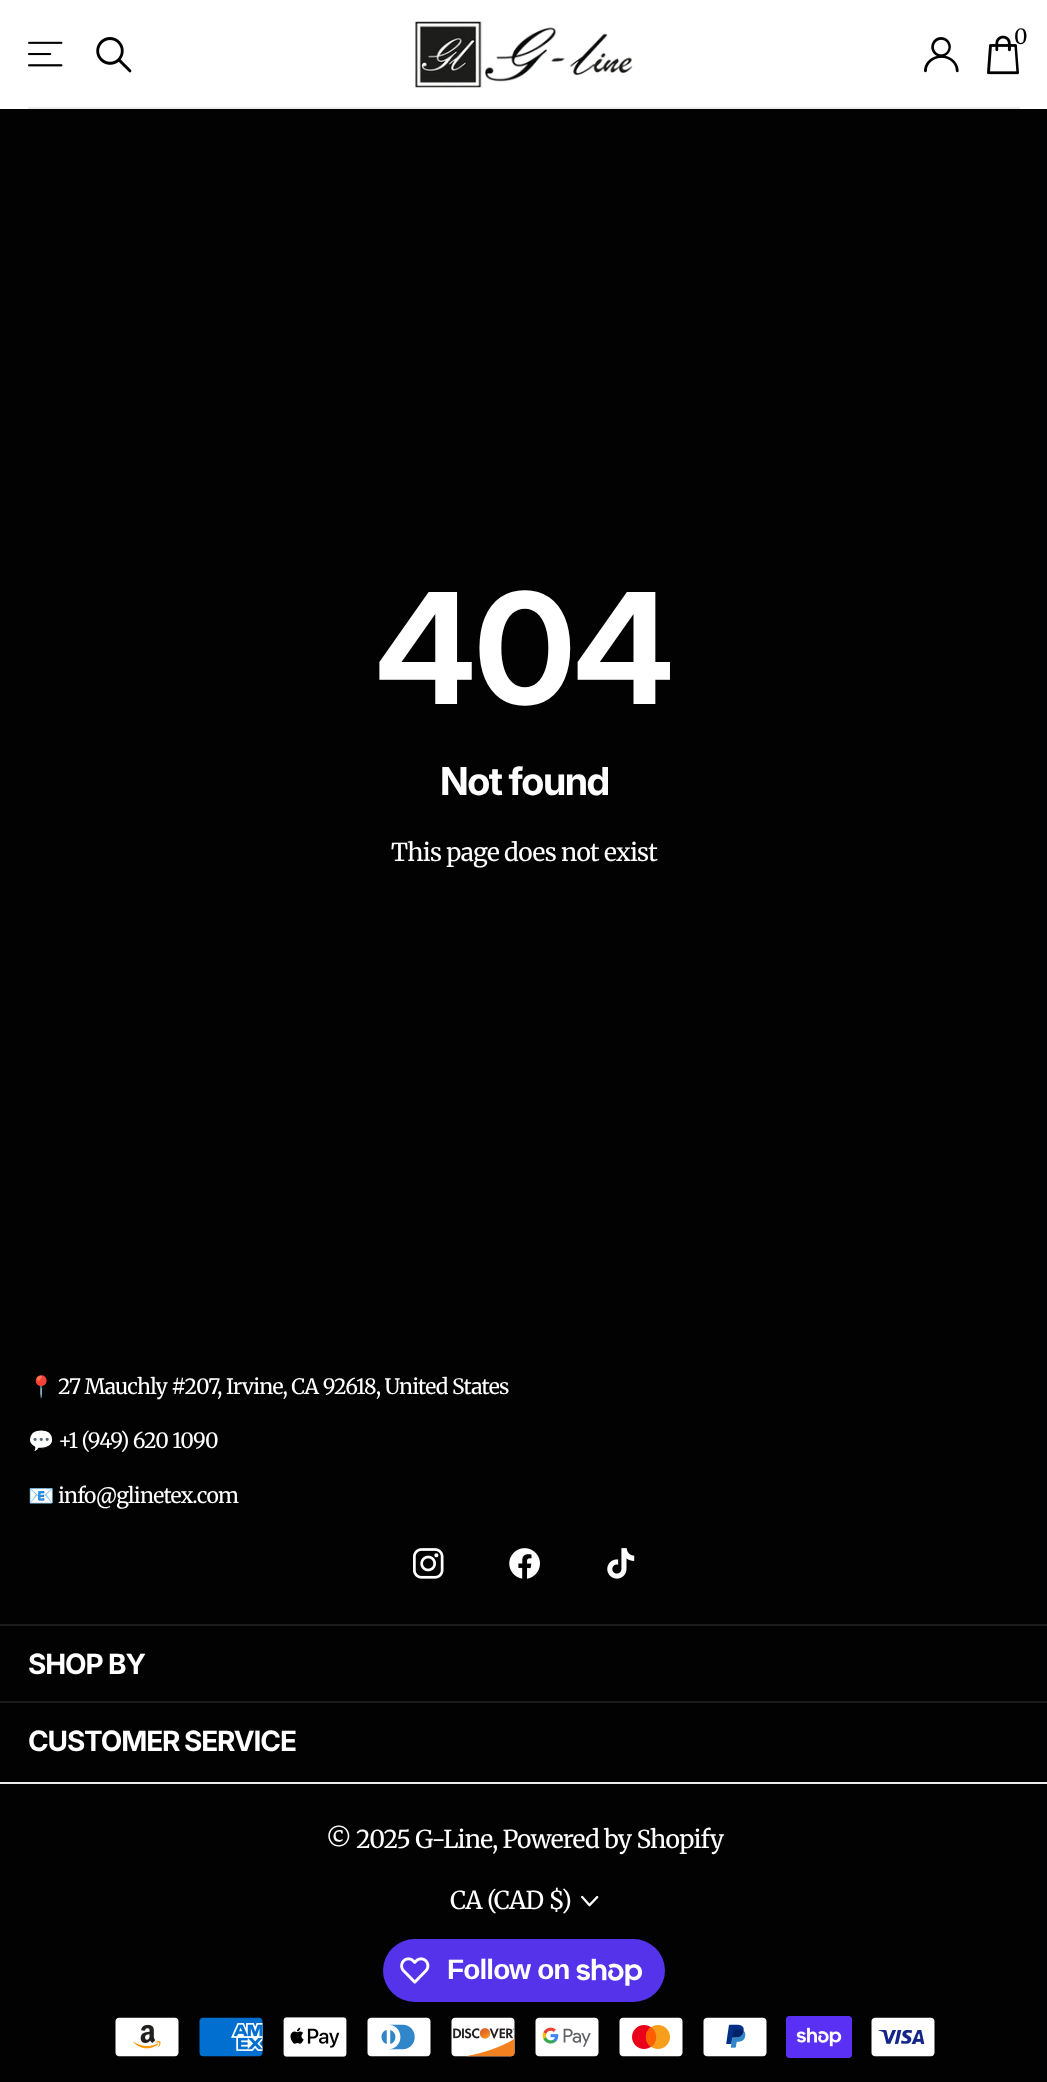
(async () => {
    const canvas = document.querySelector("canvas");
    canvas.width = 1047;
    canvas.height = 2082;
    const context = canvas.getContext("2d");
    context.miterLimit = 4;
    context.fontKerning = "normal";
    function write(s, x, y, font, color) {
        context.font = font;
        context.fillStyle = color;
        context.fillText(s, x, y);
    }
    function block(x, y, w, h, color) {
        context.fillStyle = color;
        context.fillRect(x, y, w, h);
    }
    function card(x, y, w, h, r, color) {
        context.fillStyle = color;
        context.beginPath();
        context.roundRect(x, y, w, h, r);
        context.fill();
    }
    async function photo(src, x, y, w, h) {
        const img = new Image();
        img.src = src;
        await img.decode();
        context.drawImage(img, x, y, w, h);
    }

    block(0, 0, 1047, 2082, "rgb(255, 255, 255)");
    await photo("media/1.png", 28, 41, 35, 26);
    await photo("media/2.png", 96, 37, 36, 36);
    await photo("media/3.png", 415, 21, 218, 67);
    await photo("media/4.png", 924, 37, 35, 36);
    await photo("media/5.png", 987, 35, 32, 40);
    context.letterSpacing = "-1px";
    write("0", 1014, 44, "21px Merriweather", "rgb(0, 0, 0)");
    block(28, 107, 992, 2, "rgb(236, 236, 236)");
    block(0, 109, 1047, 1973, "rgb(2, 2, 2)");
    context.letterSpacing = "-1.5px";
    write("404", 375, 704, "bold 154px Inter", "rgb(255, 255, 255)");
    write("Not found", 440, 795, "bold 38.5px 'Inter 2'", "rgb(255, 255, 255)");
    context.letterSpacing = "-0.75px";
    write("This page does not exist", 391, 861, "24.5px Merriweather", "rgb(255, 255, 255)");
    write("📍", 28, 1394, "21.1px Noto Color Emoji", "rgb(255, 255, 255)");
    write("27 Mauchly #207, Irvine, CA 92618, United States", 58, 1394, "21.1px Merriweather", "rgb(255, 255, 255)");
    write("💬", 28, 1448, "21.1px Noto Color Emoji", "rgb(255, 255, 255)");
    write("+1 (949) 620 1090", 58, 1448, "21.1px Merriweather", "rgb(255, 255, 255)");
    write("📧", 28, 1503, "21.1px Noto Color Emoji", "rgb(255, 255, 255)");
    write("info@glinetex.com", 58, 1503, "21.1px Merriweather", "rgb(255, 255, 255)");
    await photo("media/6.png", 413, 1548, 31, 31);
    await photo("media/7.png", 509, 1548, 31, 31);
    await photo("media/8.png", 607, 1548, 28, 31);
    block(0, 1624, 1047, 2, "rgb(27, 27, 27)");
    context.letterSpacing = "-1.1px";
    write("SHOP BY", 28, 1674, "bold 28px 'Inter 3'", "rgb(255, 255, 255)");
    block(0, 1701, 1047, 2, "rgb(27, 27, 27)");
    context.wordSpacing = "-1px";
    write("CUSTOMER SERVICE", 28, 1751, "bold 28px 'Inter 3'", "rgb(255, 255, 255)");
    block(0, 1782, 1047, 2, "rgb(236, 236, 236)");
    context.letterSpacing = "-0.75px";
    context.wordSpacing = "0px";
    write("© 2025 G-Line, Powered by Shopify", 326, 1848, "24.6px Merriweather", "rgb(255, 255, 255)");
    write("CA (CAD $)", 450, 1909, "24.6px Merriweather", "rgb(255, 255, 255)");
    await photo("media/9.png", 581, 1895, 18, 12);
    card(383, 1939, 282, 63, 31.5, "rgb(84, 51, 235)");
    await photo("media/10.png", 400, 1957, 30, 27);
    context.letterSpacing = "-0.9px";
    write("Follow on", 447, 1979, "bold 28px Liberation Sans", "rgb(255, 255, 255)");
    await photo("media/11.png", 576, 1958, 67, 28);
    await photo("media/12.png", 115, 2017, 64, 40);
    await photo("media/13.png", 199, 2017, 64, 40);
    await photo("media/14.png", 283, 2017, 64, 40);
    await photo("media/15.png", 367, 2017, 64, 40);
    await photo("media/16.png", 451, 2017, 64, 40);
    await photo("media/17.png", 535, 2017, 64, 40);
    await photo("media/18.png", 619, 2017, 64, 40);
    await photo("media/19.png", 703, 2017, 64, 40);
    await photo("media/20.png", 786, 2016, 66, 42);
    await photo("media/21.png", 871, 2017, 64, 40);
})();
